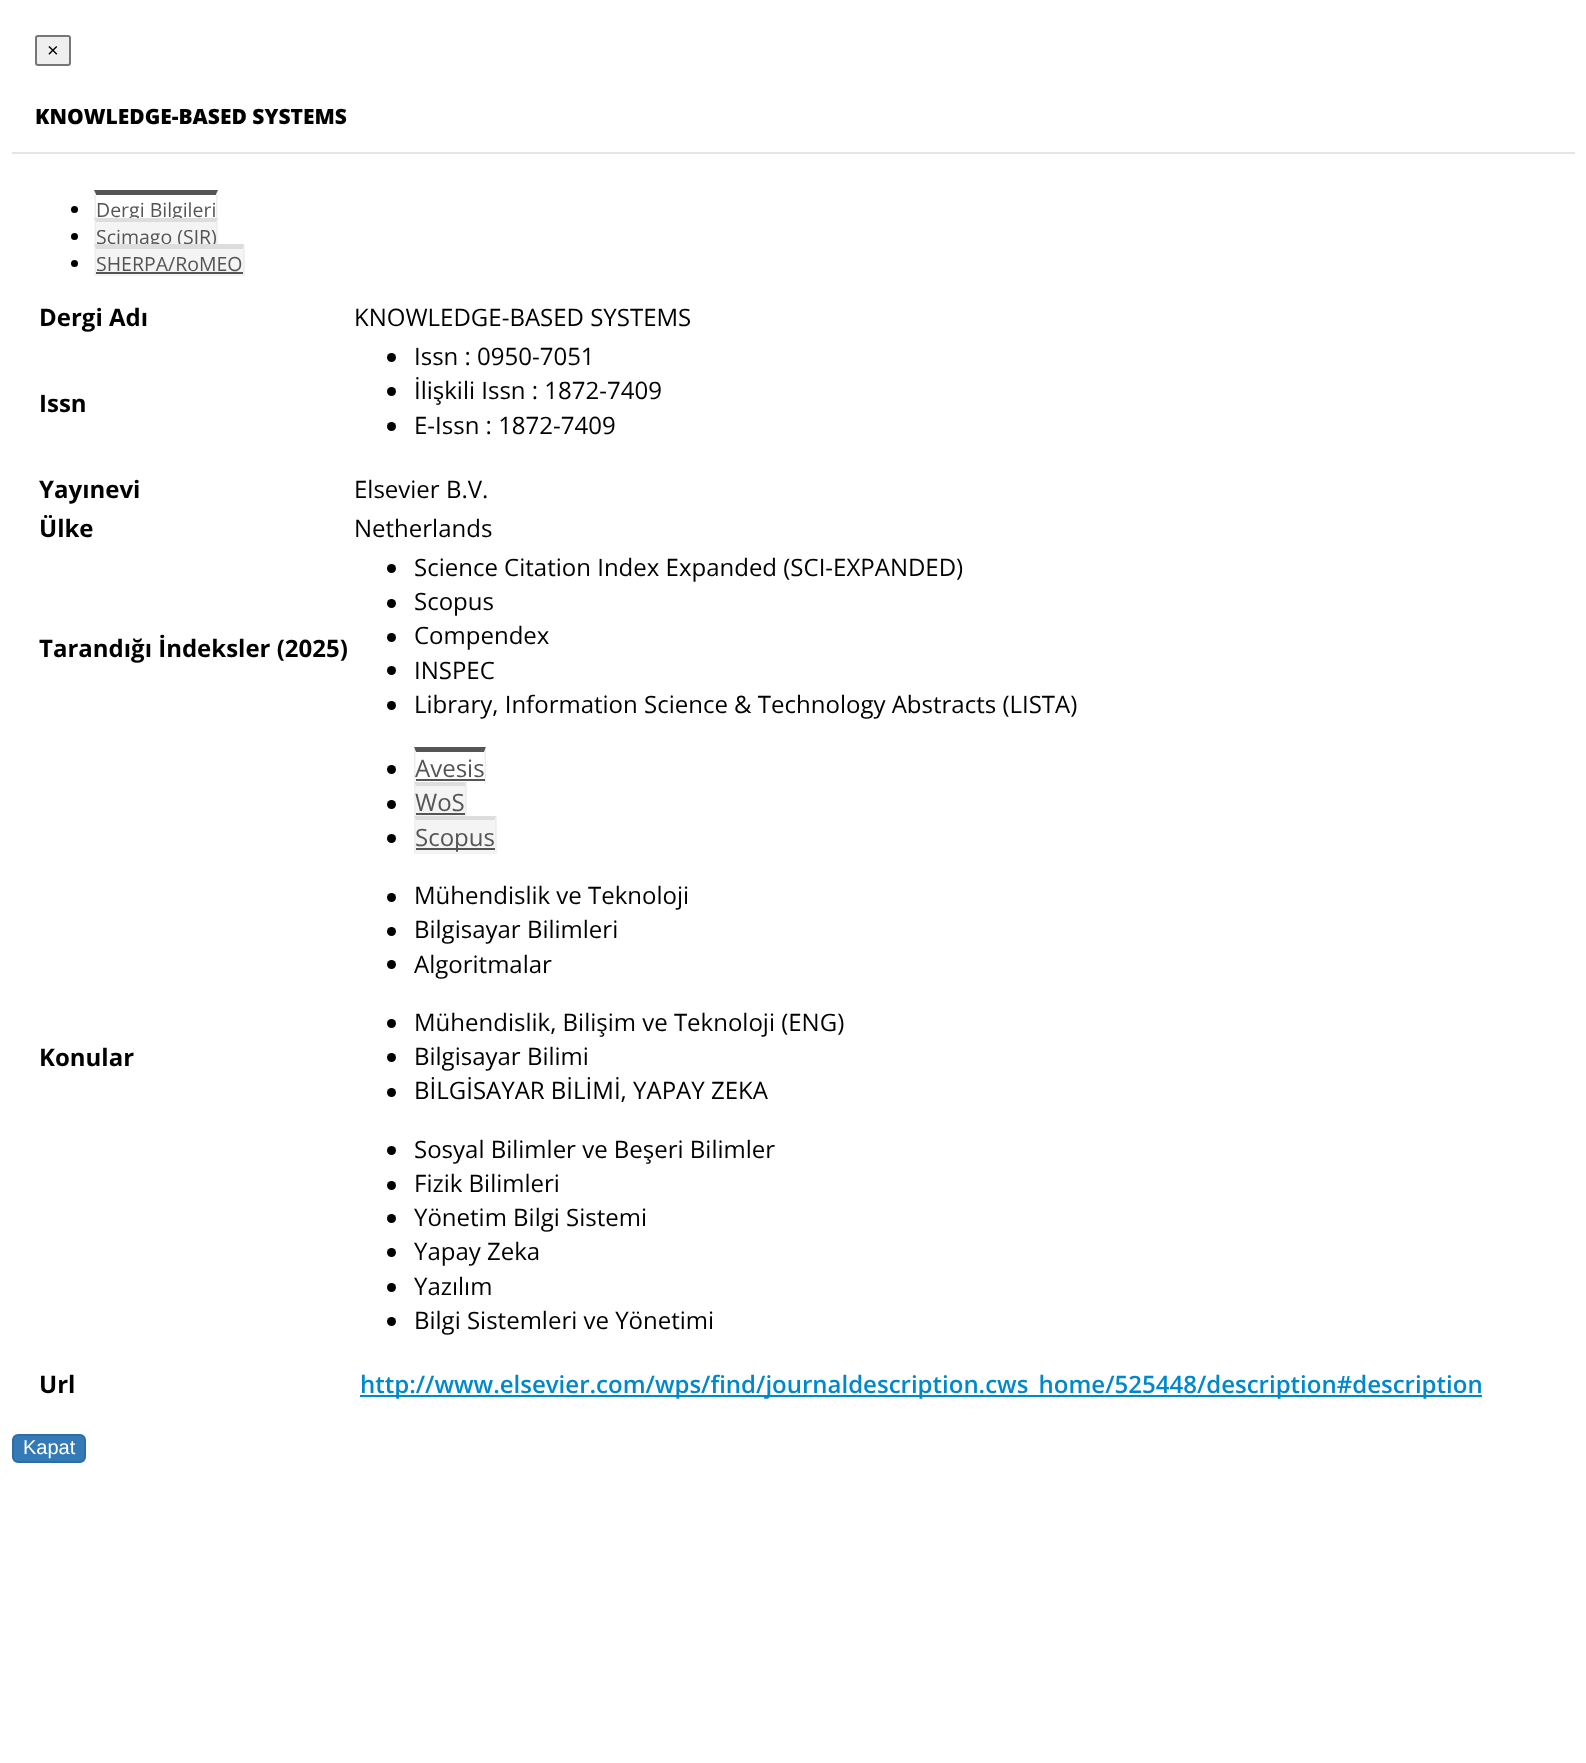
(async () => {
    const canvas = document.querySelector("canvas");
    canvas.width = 1586;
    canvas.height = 1763;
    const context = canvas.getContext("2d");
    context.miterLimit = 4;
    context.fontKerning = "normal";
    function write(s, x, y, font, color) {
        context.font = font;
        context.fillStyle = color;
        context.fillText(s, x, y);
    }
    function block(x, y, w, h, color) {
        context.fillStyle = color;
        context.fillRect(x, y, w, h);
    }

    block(0, 0, 1586, 1763, "rgb(255, 255, 255)");
    block(12, 152, 1563, 2, "rgb(229, 229, 229)");
    context.fillStyle = "rgb(239, 239, 239)";
    context.beginPath();
    context.roundRect(36, 36, 34, 29, 2);
    context.fill();
    context.strokeStyle = "rgb(118, 118, 118)";
    context.lineWidth = 2;
    context.stroke();
    write("×", 47, 57, "20px Liberation Sans", "rgb(0, 0, 0)");
    write("KNOWLEDGE-BASED SYSTEMS", 35, 124, "800 21px Open Sans", "rgb(0, 0, 0)");
    context.beginPath();
    context.arc(74.5, 209.5, 3.5, 0, Math.PI * 2);
    context.fill();
    write("Dergi Bilgileri", 96, 217, "19.5px Open Sans", "rgb(85, 85, 85)");
    context.beginPath();
    context.moveTo(94, 190);
    context.lineTo(218, 190);
    context.lineTo(216, 195);
    context.lineTo(96, 195);
    context.closePath();
    context.fill();
    context.fillStyle = "rgb(238, 238, 238)";
    context.beginPath();
    context.moveTo(217.5, 190.5);
    context.lineTo(217.5, 222);
    context.lineTo(216, 222);
    context.lineTo(216, 195);
    context.closePath();
    context.fill();
    context.beginPath();
    context.moveTo(94.5, 222);
    context.lineTo(94.5, 190.5);
    context.lineTo(96, 195);
    context.lineTo(96, 222);
    context.closePath();
    context.fill();
    context.fillStyle = "rgb(0, 0, 0)";
    context.beginPath();
    context.arc(74.5, 236.5, 3.5, 0, Math.PI * 2);
    context.fill();
    block(95, 218, 123, 26, "rgb(244, 244, 244)");
    write("Scimago (SJR)", 96, 244, "19.5px Open Sans", "rgb(85, 85, 85)");
    context.fillStyle = "rgb(221, 221, 221)";
    context.beginPath();
    context.moveTo(94, 218);
    context.lineTo(218, 218);
    context.lineTo(216, 222);
    context.lineTo(96, 222);
    context.closePath();
    context.fill();
    context.fillStyle = "rgb(238, 238, 238)";
    context.beginPath();
    context.moveTo(217.5, 217.5);
    context.lineTo(217.5, 249);
    context.lineTo(216, 249);
    context.lineTo(216, 222);
    context.closePath();
    context.fill();
    context.beginPath();
    context.moveTo(94.5, 249);
    context.lineTo(94.5, 217.5);
    context.lineTo(96, 222);
    context.lineTo(96, 249);
    context.closePath();
    context.fill();
    context.fillStyle = "rgb(0, 0, 0)";
    context.beginPath();
    context.arc(74.5, 263.5, 3.5, 0, Math.PI * 2);
    context.fill();
    block(95, 245, 150, 31, "rgb(244, 244, 244)");
    write("SHERPA/RoMEO", 96, 271, "19.5px Open Sans", "rgb(85, 85, 85)");
    context.fillStyle = "rgb(221, 221, 221)";
    context.beginPath();
    context.moveTo(94, 244);
    context.lineTo(244, 244);
    context.lineTo(243, 249);
    context.lineTo(96, 249);
    context.closePath();
    context.fill();
    context.fillStyle = "rgb(238, 238, 238)";
    context.beginPath();
    context.moveTo(244.5, 244.5);
    context.lineTo(244.5, 276);
    context.lineTo(243, 276);
    context.lineTo(243, 249);
    context.closePath();
    context.fill();
    context.beginPath();
    context.moveTo(94.5, 276);
    context.lineTo(94.5, 244.5);
    context.lineTo(96, 249);
    context.lineTo(96, 276);
    context.closePath();
    context.fill();
    block(96, 272, 147, 2, "rgb(85, 85, 85)");
    write("Dergi Adı", 39, 326, "bold 24px Open Sans", "rgb(0, 0, 0)");
    write("KNOWLEDGE-BASED SYSTEMS", 354, 326, "24px Open Sans", "rgb(0, 0, 0)");
    write("Issn", 39, 412, "bold 24px Open Sans", "rgb(0, 0, 0)");
    context.beginPath();
    context.arc(391.5, 357.5, 4.5, 0, Math.PI * 2);
    context.fill();
    write("Issn : 0950-7051", 414, 365, "24px Open Sans", "rgb(0, 0, 0)");
    context.beginPath();
    context.arc(391.5, 391.5, 4.5, 0, Math.PI * 2);
    context.fill();
    write("İlişkili Issn : 1872-7409", 414, 399, "24px Open Sans", "rgb(0, 0, 0)");
    context.beginPath();
    context.arc(391.5, 426.5, 4.5, 0, Math.PI * 2);
    context.fill();
    write("E-Issn : 1872-7409", 414, 434, "24px Open Sans", "rgb(0, 0, 0)");
    write("Yayınevi", 39, 498, "bold 24px Open Sans", "rgb(0, 0, 0)");
    write("Elsevier B.V.", 354, 498, "24px Open Sans", "rgb(0, 0, 0)");
    write("Ülke", 39, 537, "bold 24px Open Sans", "rgb(0, 0, 0)");
    write("Netherlands", 354, 537, "24px Open Sans", "rgb(0, 0, 0)");
    write("Tarandığı İndeksler (2025)", 39, 657, "bold 24px Open Sans", "rgb(0, 0, 0)");
    context.beginPath();
    context.arc(391.5, 568.5, 4.5, 0, Math.PI * 2);
    context.fill();
    write("Science Citation Index Expanded (SCI-EXPANDED)", 414, 576, "24px Open Sans", "rgb(0, 0, 0)");
    context.beginPath();
    context.arc(391.5, 603.5, 4.5, 0, Math.PI * 2);
    context.fill();
    write("Scopus", 414, 610, "24px Open Sans", "rgb(0, 0, 0)");
    context.beginPath();
    context.arc(391.5, 637.5, 4.5, 0, Math.PI * 2);
    context.fill();
    write("Compendex", 414, 644, "24px Open Sans", "rgb(0, 0, 0)");
    context.beginPath();
    context.arc(391.5, 670.5, 4.5, 0, Math.PI * 2);
    context.fill();
    write("INSPEC", 414, 679, "24px Open Sans", "rgb(0, 0, 0)");
    context.beginPath();
    context.arc(391.5, 705.5, 4.5, 0, Math.PI * 2);
    context.fill();
    write("Library, Information Science & Technology Abstracts (LISTA)", 414, 713, "24px Open Sans", "rgb(0, 0, 0)");
    write("Konular", 39, 1066, "bold 24px Open Sans", "rgb(0, 0, 0)");
    context.beginPath();
    context.arc(391.5, 769.5, 4.5, 0, Math.PI * 2);
    context.fill();
    context.fillStyle = "rgb(85, 85, 85)";
    context.beginPath();
    context.moveTo(414, 747);
    context.lineTo(486, 747);
    context.lineTo(484, 752);
    context.lineTo(416, 752);
    context.closePath();
    context.fill();
    context.fillStyle = "rgb(238, 238, 238)";
    context.beginPath();
    context.moveTo(414, 784.5);
    context.lineTo(414, 747);
    context.lineTo(415.5, 751.5);
    context.lineTo(415.5, 784.5);
    context.closePath();
    context.fill();
    write("Avesis", 415, 777, "24px Open Sans", "rgb(85, 85, 85)");
    context.fillStyle = "rgb(238, 238, 238)";
    context.beginPath();
    context.moveTo(486, 747);
    context.lineTo(486, 784.5);
    context.lineTo(484.5, 784.5);
    context.lineTo(484.5, 751.5);
    context.closePath();
    context.fill();
    block(416, 779, 69, 2, "rgb(85, 85, 85)");
    context.fillStyle = "rgb(0, 0, 0)";
    context.beginPath();
    context.arc(391.5, 804.5, 4.5, 0, Math.PI * 2);
    context.fill();
    block(414, 782, 53, 34, "rgb(244, 244, 244)");
    context.fillStyle = "rgb(221, 221, 221)";
    context.beginPath();
    context.moveTo(414, 782);
    context.lineTo(466, 782);
    context.lineTo(465, 786);
    context.lineTo(416, 786);
    context.closePath();
    context.fill();
    context.fillStyle = "rgb(238, 238, 238)";
    context.beginPath();
    context.moveTo(466.5, 781.5);
    context.lineTo(466.5, 819);
    context.lineTo(465, 819);
    context.lineTo(465, 786);
    context.closePath();
    context.moveTo(414, 819);
    context.lineTo(414, 781.5);
    context.lineTo(415.5, 786);
    context.lineTo(415.5, 819);
    context.closePath();
    context.fill();
    write("WoS", 415, 811, "24px Open Sans", "rgb(85, 85, 85)");
    block(416, 813, 49, 2, "rgb(85, 85, 85)");
    context.fillStyle = "rgb(0, 0, 0)";
    context.beginPath();
    context.arc(391.5, 838.5, 4.5, 0, Math.PI * 2);
    context.fill();
    block(414, 816, 83, 38, "rgb(244, 244, 244)");
    block(416, 848, 79, 2, "rgb(85, 85, 85)");
    write("Scopus", 415, 846, "24px Open Sans", "rgb(85, 85, 85)");
    context.fillStyle = "rgb(221, 221, 221)";
    context.beginPath();
    context.moveTo(414, 816);
    context.lineTo(496, 816);
    context.lineTo(495, 820);
    context.lineTo(416, 820);
    context.closePath();
    context.fill();
    context.fillStyle = "rgb(238, 238, 238)";
    context.beginPath();
    context.moveTo(496.5, 816);
    context.lineTo(496.5, 853.5);
    context.lineTo(495, 853.5);
    context.lineTo(495, 820.5);
    context.closePath();
    context.fill();
    context.beginPath();
    context.moveTo(414, 853.5);
    context.lineTo(414, 816);
    context.lineTo(415.5, 820.5);
    context.lineTo(415.5, 853.5);
    context.closePath();
    context.fill();
    context.fillStyle = "rgb(0, 0, 0)";
    context.beginPath();
    context.arc(391.5, 897.5, 4.5, 0, Math.PI * 2);
    context.fill();
    write("Mühendislik ve Teknoloji", 414, 904, "24px Open Sans", "rgb(0, 0, 0)");
    context.beginPath();
    context.arc(391.5, 931.5, 4.5, 0, Math.PI * 2);
    context.fill();
    write("Bilgisayar Bilimleri", 414, 938, "24px Open Sans", "rgb(0, 0, 0)");
    context.beginPath();
    context.arc(391.5, 964.5, 4.5, 0, Math.PI * 2);
    context.fill();
    write("Algoritmalar", 414, 973, "24px Open Sans", "rgb(0, 0, 0)");
    context.beginPath();
    context.arc(391.5, 1023.5, 4.5, 0, Math.PI * 2);
    context.fill();
    write("Mühendislik, Bilişim ve Teknoloji (ENG)", 414, 1031, "24px Open Sans", "rgb(0, 0, 0)");
    context.beginPath();
    context.arc(391.5, 1057.5, 4.5, 0, Math.PI * 2);
    context.fill();
    write("Bilgisayar Bilimi", 414, 1065, "24px Open Sans", "rgb(0, 0, 0)");
    context.beginPath();
    context.arc(391.5, 1092.5, 4.5, 0, Math.PI * 2);
    context.fill();
    write("BİLGİSAYAR BİLİMİ, YAPAY ZEKA", 414, 1099, "24px Open Sans", "rgb(0, 0, 0)");
    context.beginPath();
    context.arc(391.5, 1150.5, 4.5, 0, Math.PI * 2);
    context.fill();
    write("Sosyal Bilimler ve Beşeri Bilimler", 414, 1158, "24px Open Sans", "rgb(0, 0, 0)");
    context.beginPath();
    context.arc(391.5, 1185.5, 4.5, 0, Math.PI * 2);
    context.fill();
    write("Fizik Bilimleri", 414, 1192, "24px Open Sans", "rgb(0, 0, 0)");
    context.beginPath();
    context.arc(391.5, 1218.5, 4.5, 0, Math.PI * 2);
    context.fill();
    write("Yönetim Bilgi Sistemi", 414, 1226, "24px Open Sans", "rgb(0, 0, 0)");
    context.beginPath();
    context.arc(391.5, 1252.5, 4.5, 0, Math.PI * 2);
    context.fill();
    write("Yapay Zeka", 414, 1260, "24px Open Sans", "rgb(0, 0, 0)");
    context.beginPath();
    context.arc(391.5, 1287.5, 4.5, 0, Math.PI * 2);
    context.fill();
    write("Yazılım", 414, 1295, "24px Open Sans", "rgb(0, 0, 0)");
    context.beginPath();
    context.arc(391.5, 1321.5, 4.5, 0, Math.PI * 2);
    context.fill();
    write("Bilgi Sistemleri ve Yönetimi", 414, 1329, "24px Open Sans", "rgb(0, 0, 0)");
    write("Url", 39, 1393, "bold 24px Open Sans", "rgb(0, 0, 0)");
    block(360, 1395, 1122, 2, "rgb(0, 136, 204)");
    write("http://www.elsevier.com/wps/find/journaldescription.cws_home/525448/description#description", 360, 1393, "600 24px Open Sans", "rgb(0, 136, 204)");
    context.fillStyle = "rgb(51, 122, 183)";
    context.beginPath();
    context.roundRect(13, 1435, 72, 27, 5);
    context.fill();
    context.strokeStyle = "rgb(46, 109, 164)";
    context.stroke();
    write("Kapat", 23, 1454, "20px Liberation Sans", "rgb(255, 255, 255)");
})();
